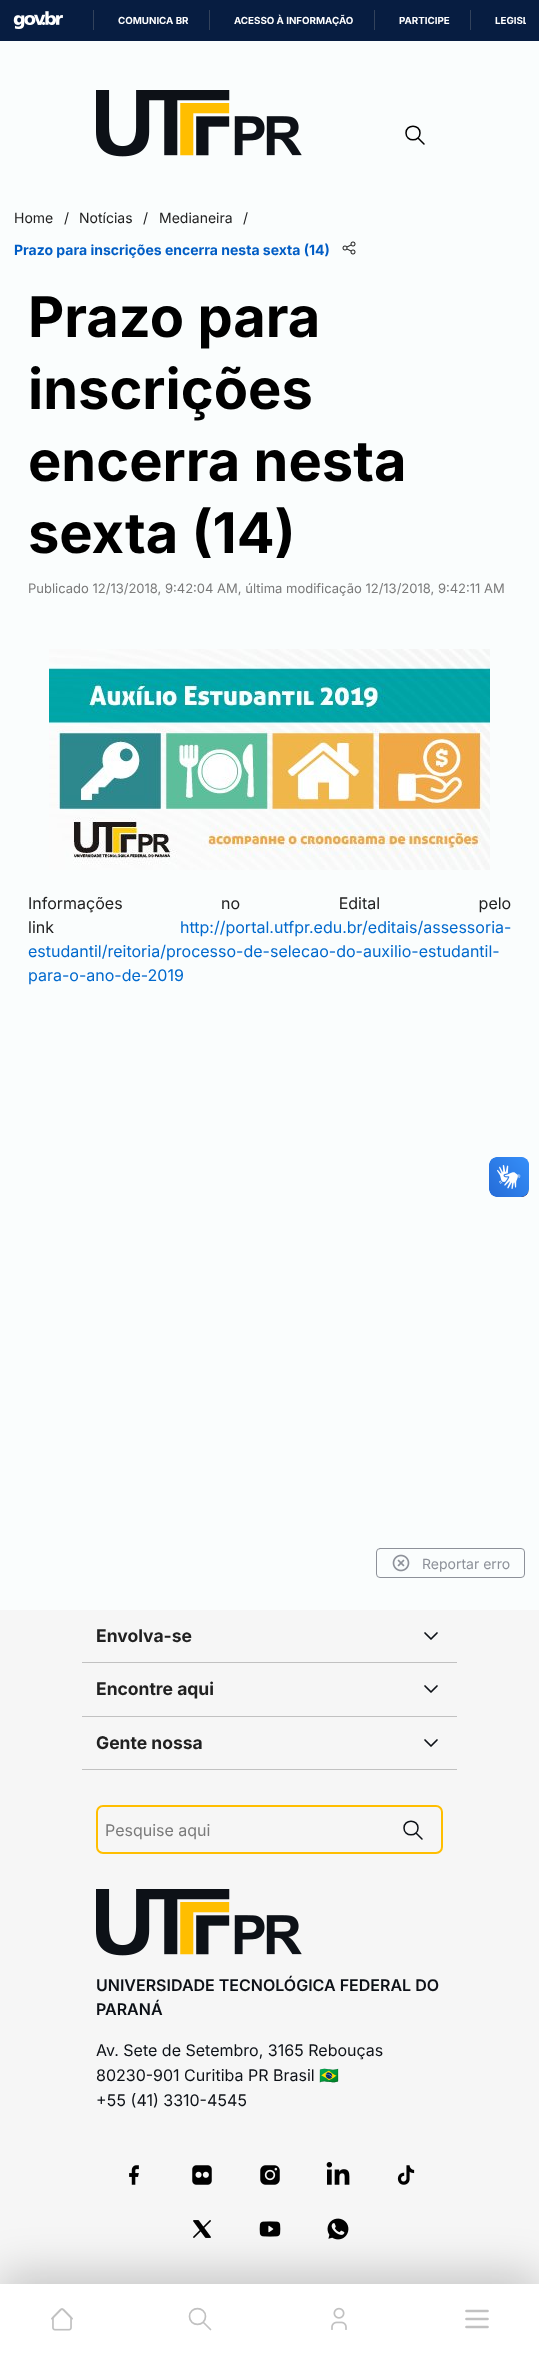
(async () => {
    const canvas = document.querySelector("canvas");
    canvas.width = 539;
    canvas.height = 2354;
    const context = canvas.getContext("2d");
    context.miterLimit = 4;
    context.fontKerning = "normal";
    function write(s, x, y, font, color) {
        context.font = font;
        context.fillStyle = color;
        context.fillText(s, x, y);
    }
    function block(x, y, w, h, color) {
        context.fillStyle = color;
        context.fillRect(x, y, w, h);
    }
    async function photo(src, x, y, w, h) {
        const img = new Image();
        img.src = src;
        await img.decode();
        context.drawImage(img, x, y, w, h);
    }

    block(0, 0, 539, 2354, "rgb(250, 253, 253)");
    block(0, 0, 539, 41, "rgb(7, 29, 65)");
    await photo("media/1.png", 13, 11, 50, 18);
    block(93, 10, 1, 20, "rgb(50, 66, 91)");
    write("COMUNICA BR", 118, 24, "bold 9.75px Inter", "rgb(255, 255, 255)");
    block(209, 10, 1, 20, "rgb(50, 66, 91)");
    write("ACESSO À INFORMAÇÃO", 234, 24, "bold 9.75px Inter", "rgb(255, 255, 255)");
    block(374, 10, 1, 20, "rgb(50, 66, 91)");
    write("PARTICIPE", 399, 24, "bold 9.75px Inter", "rgb(255, 255, 255)");
    block(470, 10, 1, 20, "rgb(50, 66, 91)");
    context.save();
    context.beginPath();
    context.rect(73, 7, 453, 26);
    context.clip();
    write("LEGISL", 495, 24, "bold 9.75px Inter", "rgb(255, 255, 255)");
    context.restore();
    await photo("media/2.png", 96, 90, 206, 67);
    context.beginPath();
    context.moveTo(424, 144);
    context.lineTo(418, 138);
    context.moveTo(406, 133);
    context.bezierCurveTo(406, 142, 420, 142, 420, 133);
    context.bezierCurveTo(420, 124, 406, 124, 406, 133);
    context.closePath();
    context.strokeStyle = "rgb(0, 0, 0)";
    context.lineWidth = 1.5;
    context.lineCap = "round";
    context.lineJoin = "round";
    context.stroke();
    block(0, 1610, 539, 674, "rgb(246, 246, 246)");
    await photo("media/14.png", 193, 2220, 18, 18);
    await photo("media/15.png", 259, 2221, 22, 16);
    await photo("media/16.png", 327, 2218, 22, 22);
    context.fillStyle = "rgba(0, 0, 0, 0.2)";
    context.filter = "blur(22.5px)";
    context.beginPath();
    context.rect(0, 2274, 539, 70);
    context.fill();
    context.filter = "none";
    block(0, 2284, 539, 70, "rgb(255, 255, 255)");
    await photo("media/3.png", 51, 2308, 22, 23);
    context.beginPath();
    context.moveTo(210.5, 2329.5);
    context.lineTo(203.5, 2322.5);
    context.moveTo(189.5, 2316.5);
    context.bezierCurveTo(189.5, 2327, 205.5, 2327, 205.5, 2316.5);
    context.bezierCurveTo(205.5, 2306, 189.5, 2306, 189.5, 2316.5);
    context.closePath();
    context.strokeStyle = "rgb(193, 193, 193)";
    context.lineWidth = 1.7;
    context.stroke();
    await photo("media/4.png", 331, 2307, 16, 23);
    context.beginPath();
    context.moveTo(466.5, 2327);
    context.lineTo(487.5, 2327);
    context.moveTo(466.5, 2319);
    context.lineTo(487.5, 2319);
    context.moveTo(466.5, 2311);
    context.lineTo(487.5, 2311);
    context.lineWidth = 2.7;
    context.lineJoin = "miter";
    context.stroke();
    write("Home", 14, 223, "14px Inter", "rgb(33, 33, 33)");
    write("/", 64, 223, "14px Inter", "rgb(33, 33, 33)");
    write("Notícias", 79, 223, "14px Inter", "rgb(33, 33, 33)");
    write("/", 143, 223, "14px Inter", "rgb(33, 33, 33)");
    write("Medianeira", 159, 223, "14px Inter", "rgb(33, 33, 33)");
    write("/", 243, 223, "14px Inter", "rgb(33, 33, 33)");
    write("Prazo para inscrições encerra nesta sexta (14)", 14, 255, "bold 14px Inter", "rgb(0, 93, 197)");
    await photo("media/5.png", 342, 241, 14, 14);
    write("Prazo para", 28, 337, "bold 56px Inter", "rgb(0, 0, 0)");
    write("inscrições", 28, 409, "bold 56px Inter", "rgb(0, 0, 0)");
    write("encerra nesta", 28, 481, "bold 56px Inter", "rgb(0, 0, 0)");
    write("sexta (14)", 28, 553, "bold 56px Inter", "rgb(0, 0, 0)");
    write("Publicado 12/13/2018, 9:42:04 AM, última modificação 12/13/2018, 9:42:11 AM", 28, 593, "13px Inter", "rgb(122, 122, 122)");
    await photo("media/6.png", 49, 649, 441, 221);
    context.wordSpacing = "94px";
    write("Informações no Edital pelo", 28, 909, "16px Inter", "rgb(33, 33, 33)");
    context.wordSpacing = "0px";
    write("link", 28, 933, "16px Inter", "rgb(33, 33, 33)");
    write("http://portal.utfpr.edu.br/editais/assessoria-", 180, 933, "16px Inter", "rgb(1, 105, 205)");
    write("estudantil/reitoria/processo-de-selecao-do-auxilio-estudantil-", 28, 957, "16px Inter", "rgb(1, 105, 205)");
    write("para-o-ano-de-2019", 28, 981, "16px Inter", "rgb(1, 105, 205)");
    context.beginPath();
    context.roundRect(376.5, 1548.5, 148, 29, 3.5);
    context.strokeStyle = "rgb(141, 145, 153)";
    context.lineWidth = 1;
    context.stroke();
    await photo("media/7.png", 392, 1554, 18, 18);
    write("Reportar erro", 422, 1569, "14px Inter", "rgb(141, 145, 153)");
    block(82, 1662, 375, 1, "rgb(193, 193, 193)");
    write("Envolva-se", 96, 1642, "bold 17.5px Inter", "rgb(33, 33, 33)");
    context.beginPath();
    context.moveTo(425, 1633);
    context.lineTo(431, 1639);
    context.lineTo(437, 1633);
    context.moveTo(425, 1686);
    context.lineTo(431, 1692);
    context.lineTo(437, 1686);
    context.strokeStyle = "rgb(13, 17, 23)";
    context.lineWidth = 1.7;
    context.lineJoin = "round";
    context.stroke();
    block(82, 1716, 375, 1, "rgb(193, 193, 193)");
    write("Encontre aqui", 96, 1695, "bold 17.5px Inter", "rgb(33, 33, 33)");
    block(82, 1769, 375, 1, "rgb(193, 193, 193)");
    write("Gente nossa", 96, 1749, "bold 17.5px Inter", "rgb(33, 33, 33)");
    context.beginPath();
    context.moveTo(425, 1740);
    context.lineTo(431, 1746);
    context.lineTo(437, 1740);
    context.stroke();
    context.beginPath();
    context.roundRect(97, 1806, 345, 47, 6);
    context.strokeStyle = "rgb(255, 190, 0)";
    context.lineWidth = 2;
    context.lineJoin = "miter";
    context.stroke();
    write("Pesquise aqui", 105, 1836, "16px Inter", "rgb(122, 122, 122)");
    context.beginPath();
    context.moveTo(422, 1839);
    context.lineTo(416, 1833);
    context.moveTo(404, 1828);
    context.bezierCurveTo(404, 1837, 418, 1837, 418, 1828);
    context.bezierCurveTo(418, 1819, 404, 1819, 404, 1828);
    context.closePath();
    context.strokeStyle = "rgb(13, 17, 23)";
    context.lineWidth = 1.5;
    context.lineJoin = "round";
    context.stroke();
    await photo("media/8.png", 96, 1889, 206, 67);
    write("UNIVERSIDADE TECNOLÓGICA FEDERAL DO", 96, 1991, "600 16px Inter", "rgb(13, 17, 23)");
    write("PARANÁ", 96, 2015, "600 16px Inter", "rgb(13, 17, 23)");
    write("Av. Sete de Setembro, 3165 Rebouças", 96, 2056, "16px Inter", "rgb(13, 17, 23)");
    write("80230-901 Curitiba PR Brasil", 96, 2081, "16px Inter", "rgb(13, 17, 23)");
    write("🇧🇷", 319, 2081, "16px Noto Color Emoji", "rgb(13, 17, 23)");
    write("+55 (41) 3310-4545", 96, 2106, "16px Inter", "rgb(13, 17, 23)");
    await photo("media/9.png", 129, 2165, 10, 20);
    await photo("media/10.png", 192, 2165, 20, 20);
    await photo("media/11.png", 260, 2165, 20, 20);
    await photo("media/12.png", 326, 2162, 24, 23);
    await photo("media/13.png", 397, 2165, 18, 20);
    await photo("media/17.png", 489, 1157, 40, 40);
    await photo("media/18.png", 489, 1157, 40, 40);
})();
